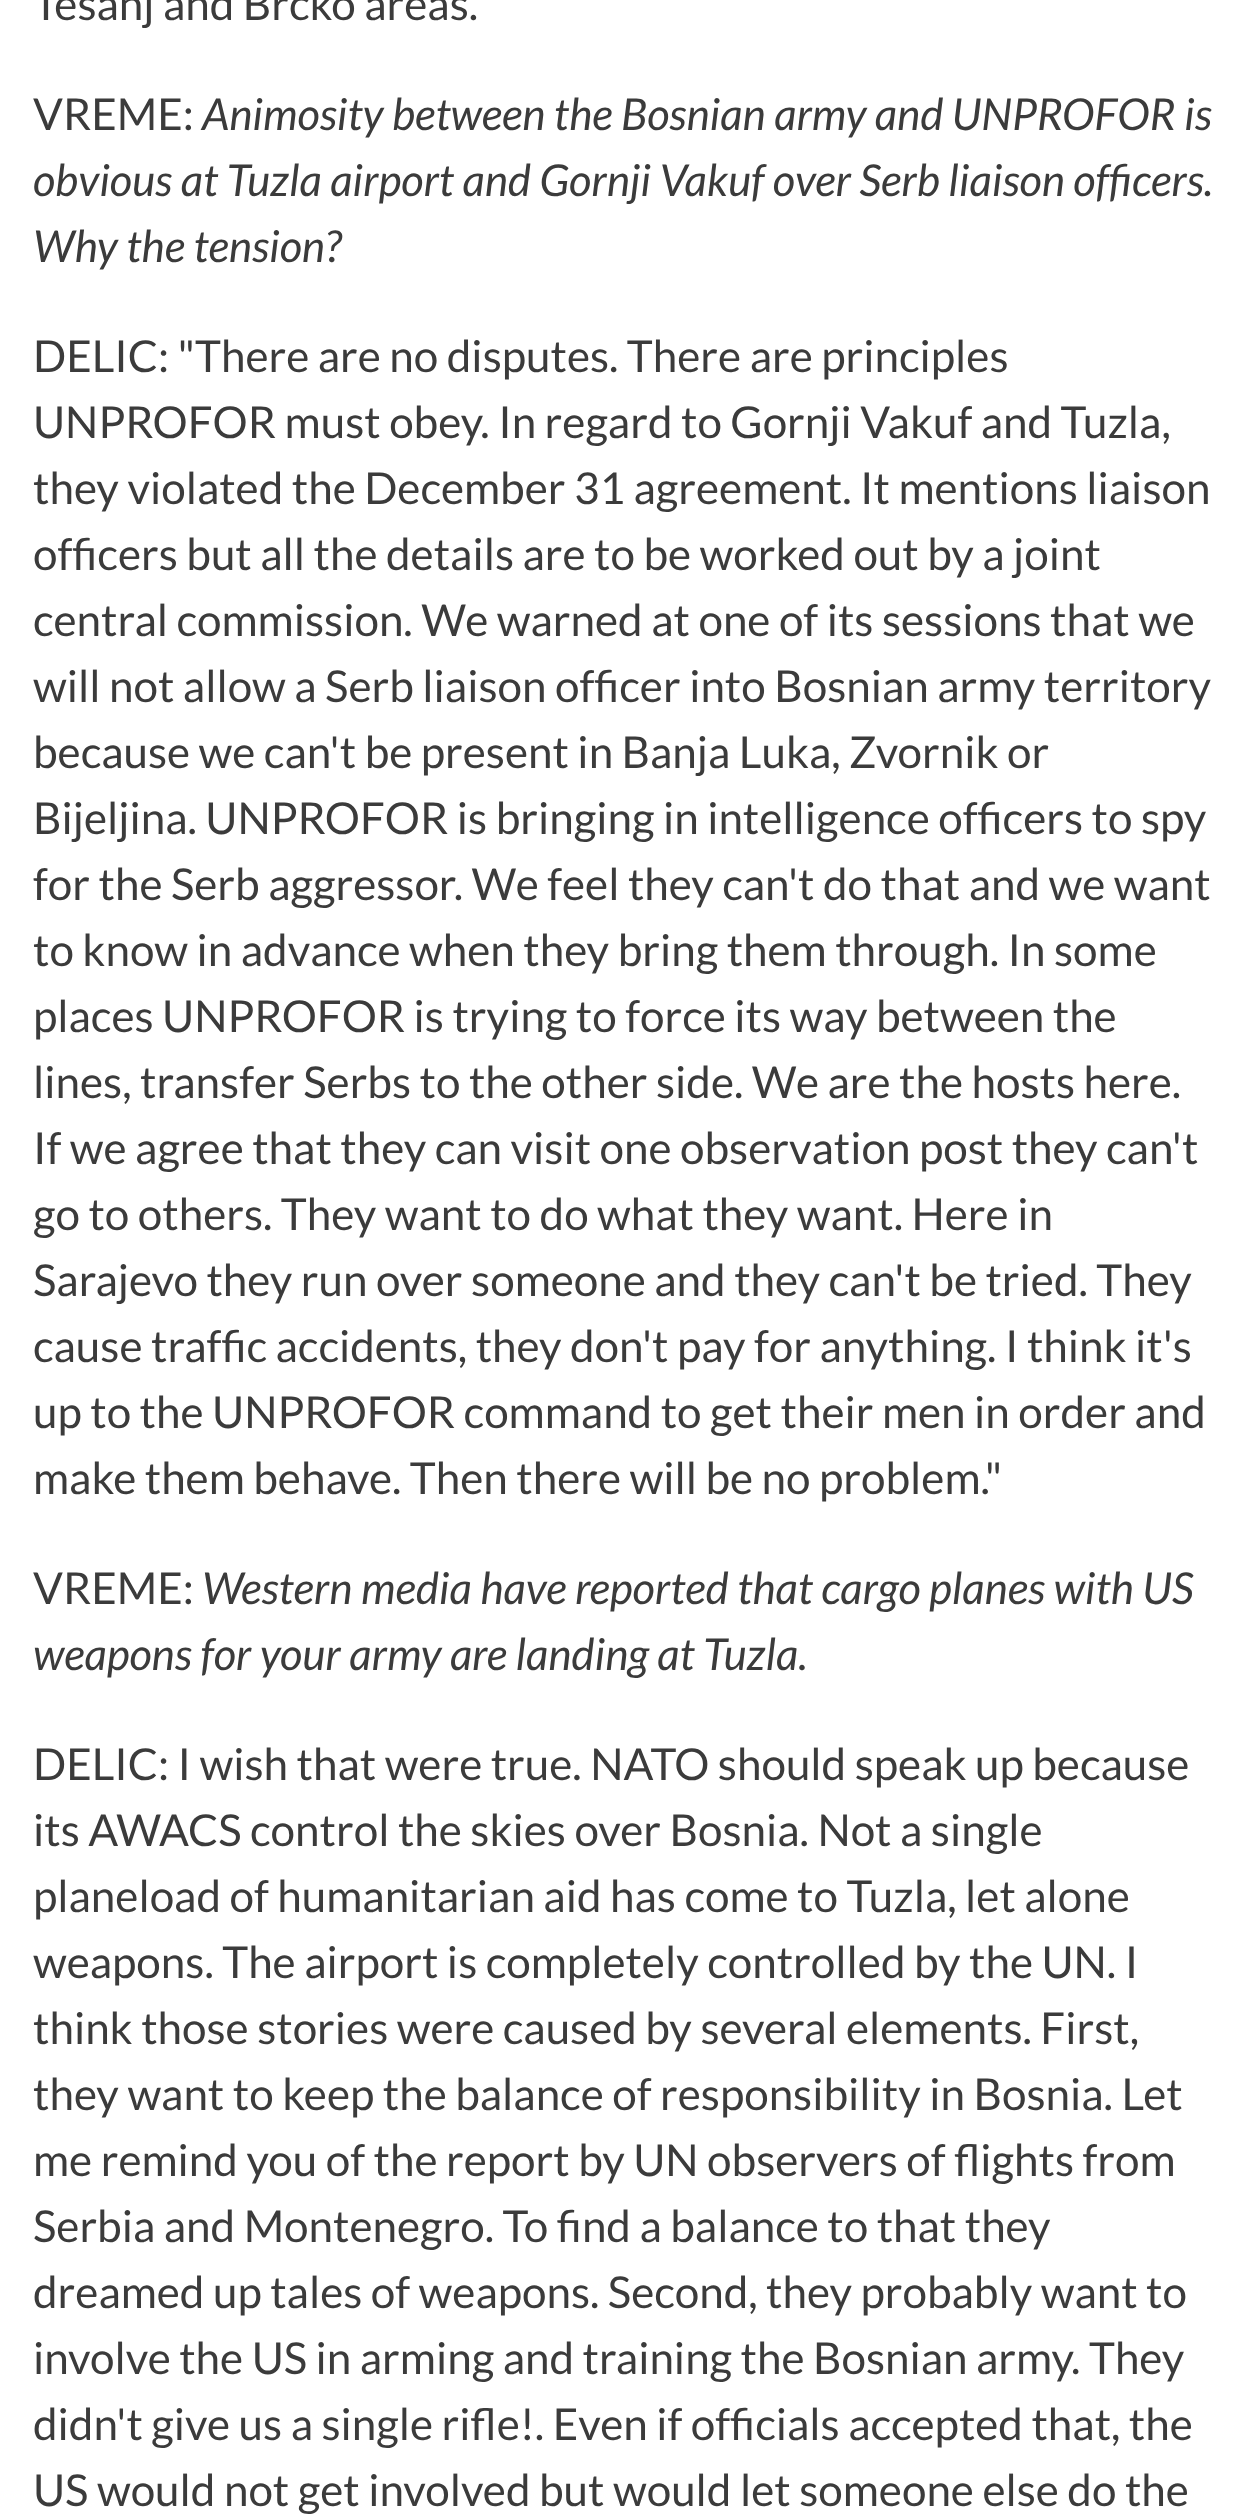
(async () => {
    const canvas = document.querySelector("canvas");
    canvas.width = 1248;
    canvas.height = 2517;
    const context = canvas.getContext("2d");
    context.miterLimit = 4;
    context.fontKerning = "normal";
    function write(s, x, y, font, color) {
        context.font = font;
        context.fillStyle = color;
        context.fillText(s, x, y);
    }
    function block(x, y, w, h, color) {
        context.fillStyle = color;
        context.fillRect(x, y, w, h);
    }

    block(0, 0, 1248, 2517, "rgb(255, 255, 255)");
    write("Tesanj and Brcko areas.\"", 33, 20, "44px Lato", "rgb(59, 59, 59)");
    write("VREME:", 33, 130, "44px Lato", "rgb(59, 59, 59)");
    write("Animosity between the Bosnian army and UNPROFOR is", 202, 130, "italic 44px Lato", "rgb(59, 59, 59)");
    write("obvious at Tuzla airport and Gornji Vakuf over Serb liaison officers.", 33, 196, "italic 44px Lato", "rgb(59, 59, 59)");
    write("Why the tension?", 33, 262, "italic 44px Lato", "rgb(59, 59, 59)");
    write("DELIC: \"There are no disputes. There are principles", 33, 372, "44px Lato", "rgb(59, 59, 59)");
    write("UNPROFOR must obey. In regard to Gornji Vakuf and Tuzla,", 33, 438, "44px Lato", "rgb(59, 59, 59)");
    write("they violated the December 31 agreement. It mentions liaison", 33, 504, "44px Lato", "rgb(59, 59, 59)");
    write("officers but all the details are to be worked out by a joint", 33, 570, "44px Lato", "rgb(59, 59, 59)");
    write("central commission. We warned at one of its sessions that we", 33, 636, "44px Lato", "rgb(59, 59, 59)");
    write("will not allow a Serb liaison officer into Bosnian army territory", 33, 702, "44px Lato", "rgb(59, 59, 59)");
    write("because we can't be present in Banja Luka, Zvornik or", 33, 768, "44px Lato", "rgb(59, 59, 59)");
    write("Bijeljina. UNPROFOR is bringing in intelligence officers to spy", 33, 834, "44px Lato", "rgb(59, 59, 59)");
    write("for the Serb aggressor. We feel they can't do that and we want", 33, 900, "44px Lato", "rgb(59, 59, 59)");
    write("to know in advance when they bring them through. In some", 33, 966, "44px Lato", "rgb(59, 59, 59)");
    write("places UNPROFOR is trying to force its way between the", 33, 1032, "44px Lato", "rgb(59, 59, 59)");
    write("lines, transfer Serbs to the other side. We are the hosts here.", 33, 1098, "44px Lato", "rgb(59, 59, 59)");
    write("If we agree that they can visit one observation post they can't", 33, 1164, "44px Lato", "rgb(59, 59, 59)");
    write("go to others. They want to do what they want. Here in", 33, 1230, "44px Lato", "rgb(59, 59, 59)");
    write("Sarajevo they run over someone and they can't be tried. They", 33, 1296, "44px Lato", "rgb(59, 59, 59)");
    write("cause traffic accidents, they don't pay for anything. I think it's", 33, 1362, "44px Lato", "rgb(59, 59, 59)");
    write("up to the UNPROFOR command to get their men in order and", 33, 1428, "44px Lato", "rgb(59, 59, 59)");
    write("make them behave. Then there will be no problem.\"", 33, 1494, "44px Lato", "rgb(59, 59, 59)");
    write("VREME:", 33, 1604, "44px Lato", "rgb(59, 59, 59)");
    write("Western media have reported that cargo planes with US", 202, 1604, "italic 44px Lato", "rgb(59, 59, 59)");
    write("weapons for your army are landing at Tuzla.", 33, 1670, "italic 44px Lato", "rgb(59, 59, 59)");
    write("DELIC: I wish that were true. NATO should speak up because", 33, 1780, "44px Lato", "rgb(59, 59, 59)");
    write("its AWACS control the skies over Bosnia. Not a single", 33, 1846, "44px Lato", "rgb(59, 59, 59)");
    write("planeload of humanitarian aid has come to Tuzla, let alone", 33, 1912, "44px Lato", "rgb(59, 59, 59)");
    write("weapons. The airport is completely controlled by the UN. I", 33, 1978, "44px Lato", "rgb(59, 59, 59)");
    write("think those stories were caused by several elements. First,", 33, 2044, "44px Lato", "rgb(59, 59, 59)");
    write("they want to keep the balance of responsibility in Bosnia. Let", 33, 2110, "44px Lato", "rgb(59, 59, 59)");
    write("me remind you of the report by UN observers of flights from", 33, 2176, "44px Lato", "rgb(59, 59, 59)");
    write("Serbia and Montenegro. To find a balance to that they", 33, 2242, "44px Lato", "rgb(59, 59, 59)");
    write("dreamed up tales of weapons. Second, they probably want to", 33, 2308, "44px Lato", "rgb(59, 59, 59)");
    write("involve the US in arming and training the Bosnian army. They", 33, 2374, "44px Lato", "rgb(59, 59, 59)");
    write("didn't give us a single rifle!. Even if officials accepted that, the", 33, 2440, "44px Lato", "rgb(59, 59, 59)");
    write("US would not get involved but would let someone else do the", 33, 2506, "44px Lato", "rgb(59, 59, 59)");
})();
